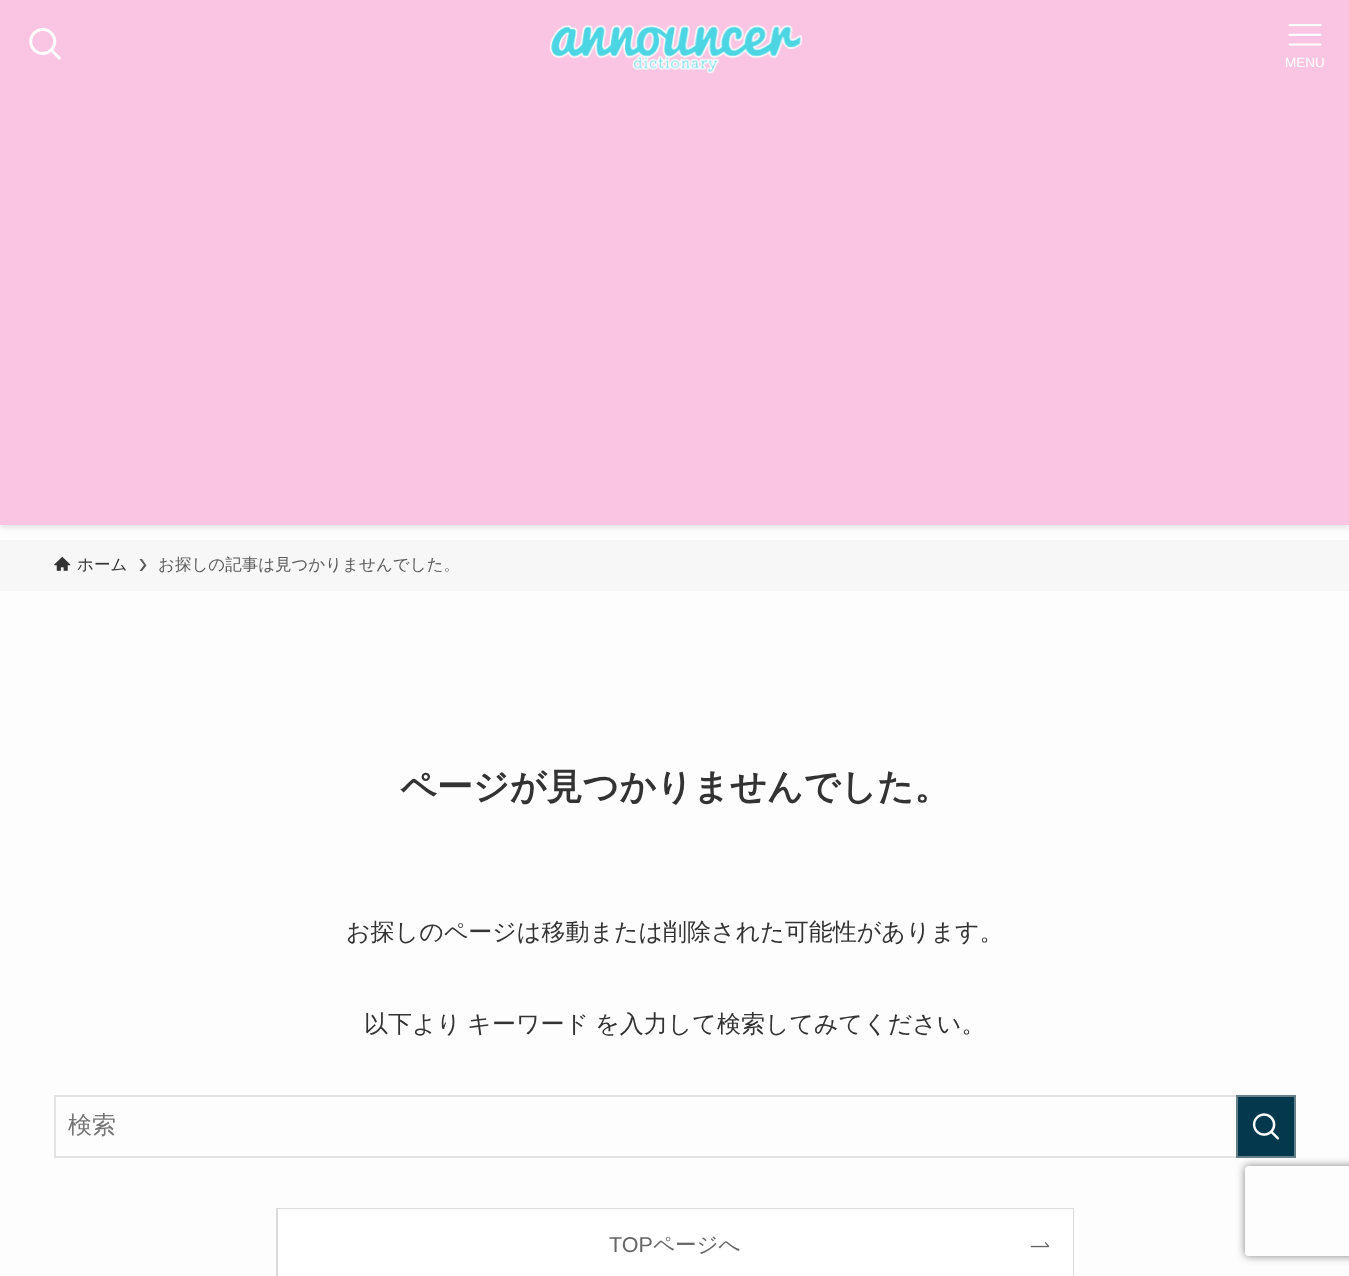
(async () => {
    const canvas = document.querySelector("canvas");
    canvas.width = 1349;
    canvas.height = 1276;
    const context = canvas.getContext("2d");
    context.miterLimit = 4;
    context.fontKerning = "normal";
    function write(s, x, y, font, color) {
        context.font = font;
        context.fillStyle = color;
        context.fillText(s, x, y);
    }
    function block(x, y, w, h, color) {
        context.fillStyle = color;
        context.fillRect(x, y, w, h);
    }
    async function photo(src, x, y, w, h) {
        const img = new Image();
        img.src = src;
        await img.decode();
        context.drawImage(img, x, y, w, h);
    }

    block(0, 0, 1349, 1276, "rgb(253, 253, 253)");
    context.fillStyle = "rgba(0, 0, 0, 0.12)";
    context.filter = "blur(3px)";
    context.beginPath();
    context.rect(0, 2, 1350, 525);
    context.fill();
    context.filter = "none";
    block(0, 0, 1349, 525, "rgb(249, 197, 226)");
    await photo("media/1.png", 29, 28, 32, 32);
    await photo("media/2.png", 549, 24, 254, 50);
    await photo("media/3.png", 1288, 24, 34, 22);
    write("MENU", 1285, 67, "13.5px Liberation Sans", "rgb(255, 255, 255)");
    block(0, 540, 1349, 51, "rgb(247, 247, 247)");
    await photo("media/4.png", 54, 556, 17, 15);
    write("ホーム", 77, 570, "500 16.5px WenQuanYi Zen Hei", "rgb(51, 51, 51)");
    context.fillStyle = "rgb(90, 90, 90)";
    context.beginPath();
    context.moveTo(142, 559);
    context.lineTo(139.5, 559);
    context.lineTo(144, 565);
    context.lineTo(139.5, 571);
    context.lineTo(142, 571);
    context.lineTo(146.5, 565.5);
    context.closePath();
    context.fill();
    write("お探しの記事は見つかりませんでした。", 158, 570, "500 16.5px WenQuanYi Zen Hei", "rgb(90, 90, 90)");
    write("ページが見つかりませんでした。", 400, 799, "bold 36px WenQuanYi Zen Hei", "rgb(51, 51, 51)");
    write("お探しのページは移動または削除された可能性があります。", 346, 940, "500 24px WenQuanYi Zen Hei", "rgb(51, 51, 51)");
    context.wordSpacing = "-1px";
    write("以下より キーワード を入力して検索してみてください。", 364, 1032, "500 24px WenQuanYi Zen Hei", "rgb(51, 51, 51)");
    context.save();
    context.beginPath();
    context.moveTo(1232, 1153);
    context.lineTo(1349, 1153);
    context.lineTo(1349, 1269);
    context.lineTo(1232, 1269);
    context.closePath();
    context.moveTo(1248, 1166);
    context.lineTo(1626, 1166);
    context.bezierCurveTo(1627.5, 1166, 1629, 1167.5, 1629, 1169);
    context.lineTo(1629, 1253);
    context.bezierCurveTo(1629, 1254.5, 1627.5, 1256, 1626, 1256);
    context.lineTo(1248, 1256);
    context.bezierCurveTo(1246.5, 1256, 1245, 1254.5, 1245, 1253);
    context.lineTo(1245, 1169);
    context.bezierCurveTo(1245, 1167.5, 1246.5, 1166, 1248, 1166);
    context.closePath();
    context.clip("evenodd");
    context.fillStyle = "rgb(128, 128, 128)";
    context.filter = "blur(4px)";
    context.beginPath();
    context.roundRect(1245, 1166, 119, 90, 3);
    context.fill();
    context.filter = "none";
    context.restore();
    context.strokeStyle = "rgb(227, 227, 227)";
    context.lineWidth = 2;
    context.strokeRect(55, 1096, 1240, 61);
    context.wordSpacing = "0px";
    write("検索", 68, 1133, "500 24px WenQuanYi Zen Hei", "rgb(117, 117, 117)");
    context.fillStyle = "rgb(4, 56, 76)";
    context.beginPath();
    context.rect(1237, 1096, 58, 61);
    context.fill();
    context.strokeStyle = "rgb(102, 128, 138)";
    context.stroke();
    await photo("media/5.png", 1252, 1113, 28, 27);
    context.strokeStyle = "rgb(220, 220, 220)";
    context.strokeRect(277, 1209, 796, 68);
    block(278, 1209, 795, 67, "rgb(255, 255, 255)");
    write("TOP", 609, 1252, "21.5px Liberation Sans", "rgb(102, 102, 102)");
    write("ページへ", 653, 1252, "500 21.5px WenQuanYi Zen Hei", "rgb(102, 102, 102)");
    await photo("media/6.png", 1030, 1242, 20, 6);
})();
